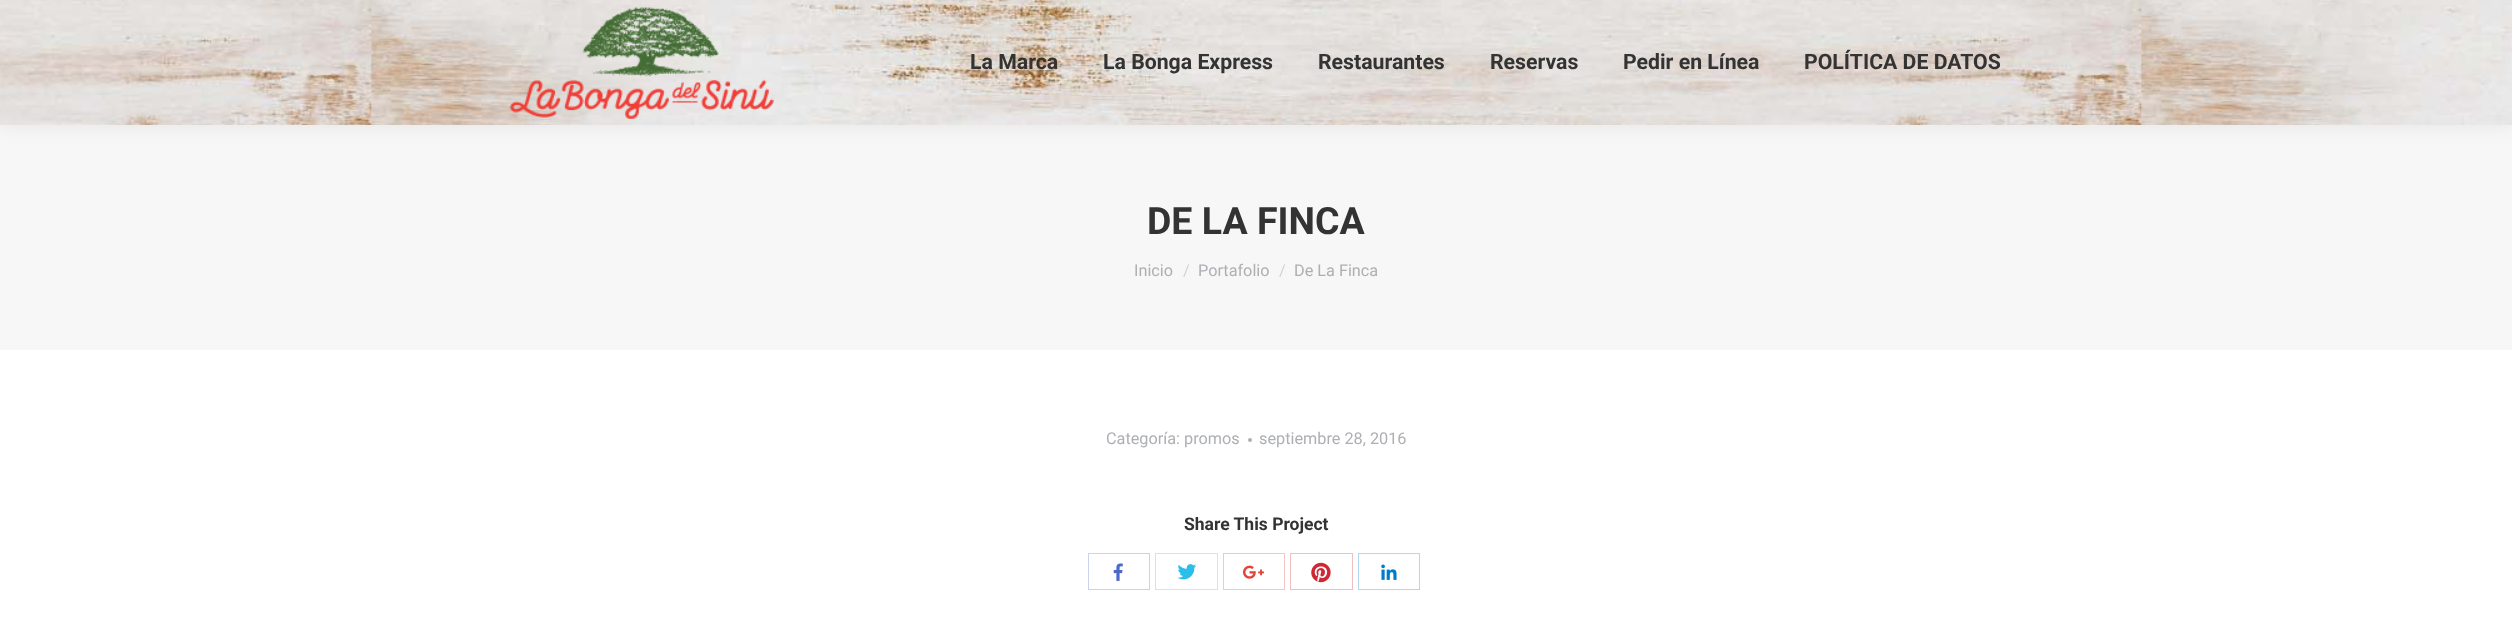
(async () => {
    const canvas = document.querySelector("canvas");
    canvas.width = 2512;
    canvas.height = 628;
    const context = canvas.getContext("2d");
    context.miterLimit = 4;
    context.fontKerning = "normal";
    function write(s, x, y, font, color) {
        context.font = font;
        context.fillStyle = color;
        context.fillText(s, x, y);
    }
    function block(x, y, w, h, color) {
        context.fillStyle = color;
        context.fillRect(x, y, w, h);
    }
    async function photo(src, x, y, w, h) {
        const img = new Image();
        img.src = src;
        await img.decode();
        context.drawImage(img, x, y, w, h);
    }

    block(0, 0, 2512, 628, "rgb(255, 255, 255)");
    block(0, 125, 2512, 225, "rgb(247, 247, 247)");
    context.fillStyle = "rgba(0, 0, 0, 0.07)";
    context.filter = "blur(9.5px)";
    context.beginPath();
    context.rect(-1, -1, 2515, 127);
    context.fill();
    context.filter = "none";
    await photo("media/1.png", 0, 0, 2512, 125);
    await photo("media/2.png", 509, 7, 265, 112);
    write("La Marca", 970, 69, "bold 21.25px Roboto", "rgb(51, 51, 51)");
    write("La Bonga Express", 1103, 69, "bold 21.25px Roboto", "rgb(51, 51, 51)");
    write("Restaurantes", 1318, 69, "bold 21.25px Roboto", "rgb(51, 51, 51)");
    write("Reservas", 1490, 69, "bold 21.25px Roboto", "rgb(51, 51, 51)");
    write("Pedir en Línea", 1623, 69, "bold 21.25px Roboto", "rgb(51, 51, 51)");
    write("POLÍTICA DE DATOS", 1804, 69, "bold 21.25px Roboto", "rgb(51, 51, 51)");
    write("DE LA FINCA", 1147, 234, "bold 37.5px Roboto", "rgb(51, 51, 51)");
    write("Inicio", 1134, 276, "16.25px Roboto", "rgb(173, 175, 179)");
    write("/", 1183, 276, "16.25px Roboto", "rgb(210, 211, 213)");
    write("Portafolio", 1198, 276, "16.25px Roboto", "rgb(173, 175, 179)");
    write("/", 1279, 276, "16.25px Roboto", "rgb(210, 211, 213)");
    write("De La Finca", 1294, 276, "16.25px Roboto", "rgb(173, 175, 179)");
    write("Categoría: promos", 1106, 444, "16.25px Roboto", "rgb(173, 175, 179)");
    context.beginPath();
    context.arc(1250, 440, 2, 0, Math.PI * 2);
    context.fill();
    write("septiembre 28, 2016", 1259, 444, "16.25px Roboto", "rgb(173, 175, 179)");
    write("Share This Project", 1184, 530, "bold 17.5px Roboto", "rgb(51, 51, 51)");
    context.strokeStyle = "rgb(201, 210, 238)";
    context.strokeRect(1088.5, 553.5, 61, 36);
    await photo("media/3.png", 1113, 563, 10, 18);
    context.strokeStyle = "rgb(191, 236, 249)";
    context.strokeRect(1155.5, 553.5, 62, 36);
    await photo("media/4.png", 1177, 564, 19, 16);
    context.strokeStyle = "rgb(248, 198, 194)";
    context.strokeRect(1223.5, 553.5, 61, 36);
    await photo("media/5.png", 1243, 565, 21, 14);
    context.strokeStyle = "rgb(241, 191, 194)";
    context.strokeRect(1290.5, 553.5, 62, 36);
    await photo("media/6.png", 1311, 562, 20, 21);
    context.strokeStyle = "rgb(179, 215, 238)";
    context.strokeRect(1358.5, 553.5, 61, 36);
    await photo("media/7.png", 1381, 564, 16, 16);
})();
